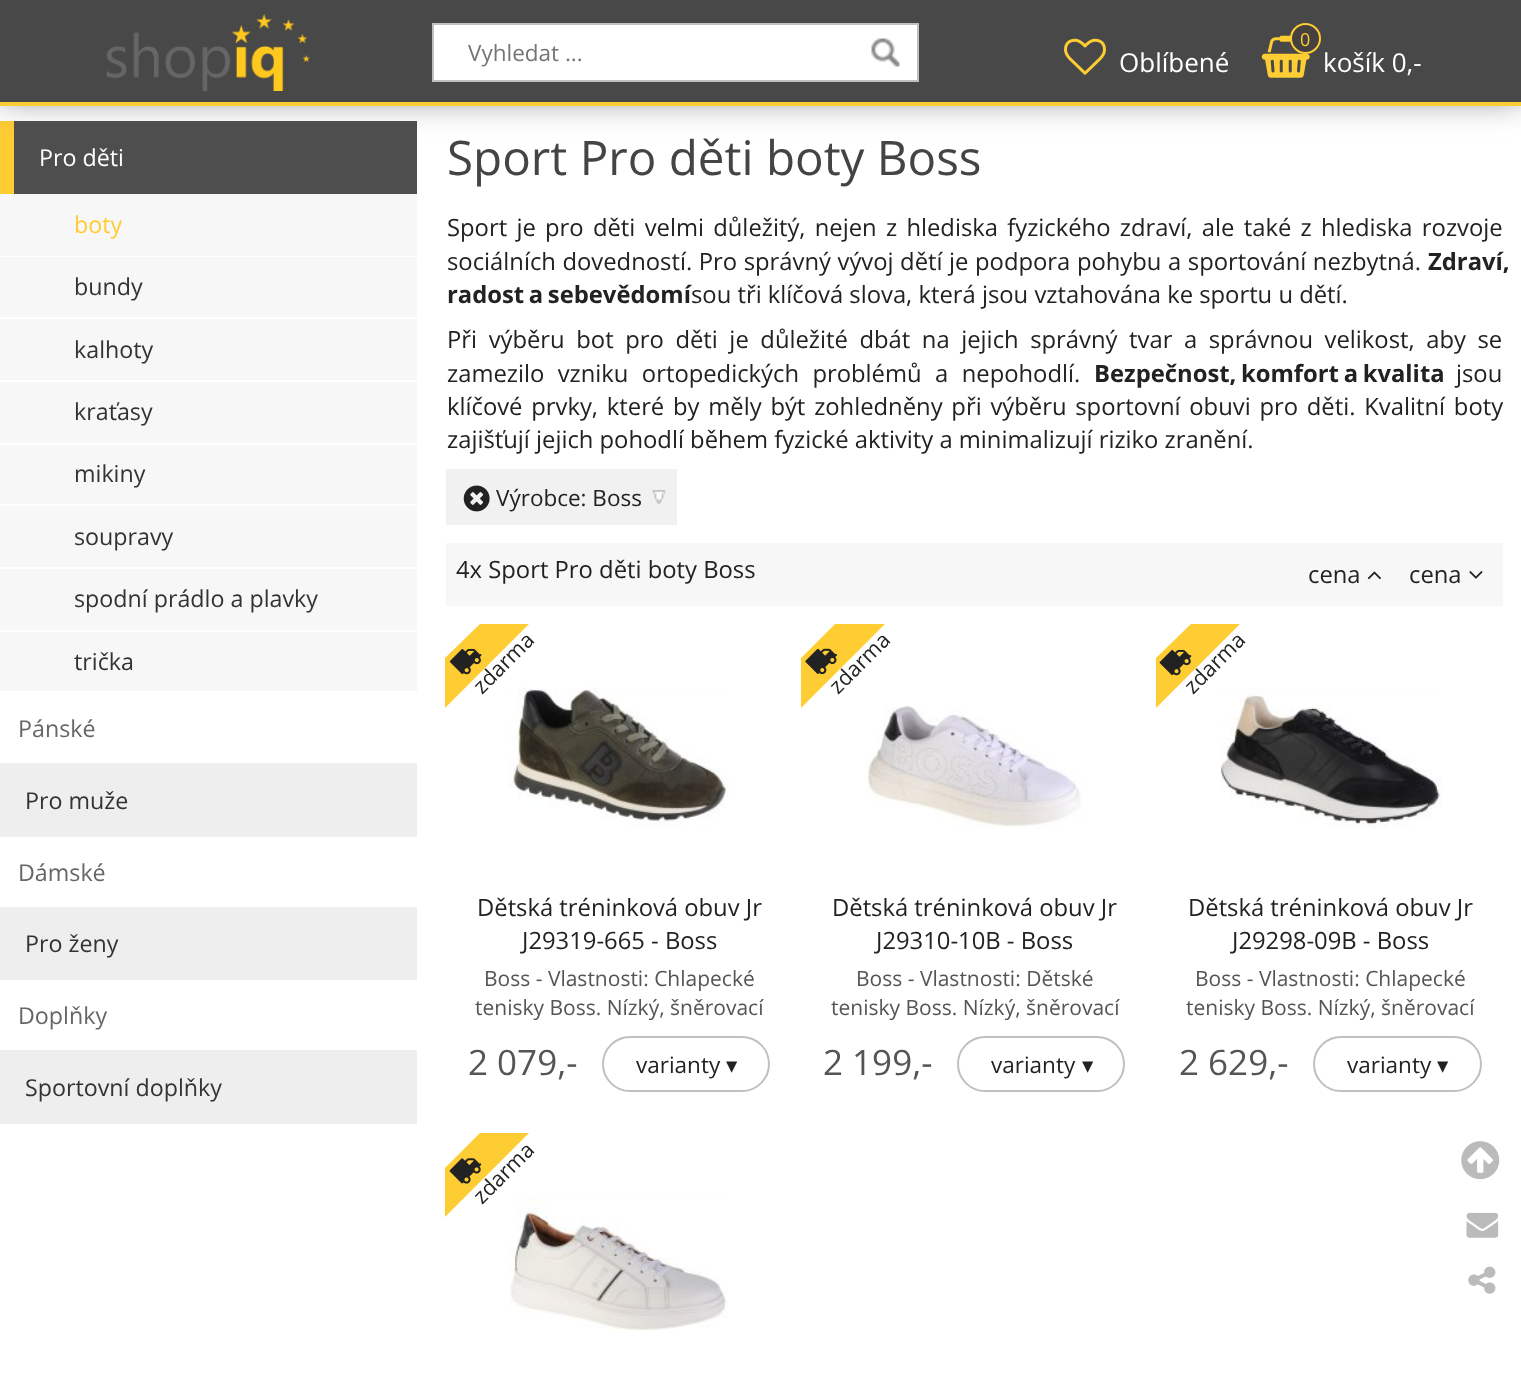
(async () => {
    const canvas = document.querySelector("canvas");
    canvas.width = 1521;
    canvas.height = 1378;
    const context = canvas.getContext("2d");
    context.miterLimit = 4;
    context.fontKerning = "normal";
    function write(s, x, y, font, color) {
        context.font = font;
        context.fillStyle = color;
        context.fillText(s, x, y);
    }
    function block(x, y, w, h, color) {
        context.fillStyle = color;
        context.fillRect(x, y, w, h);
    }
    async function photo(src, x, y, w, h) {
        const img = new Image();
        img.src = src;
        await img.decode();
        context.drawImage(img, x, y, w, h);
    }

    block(0, 0, 1521, 1378, "rgb(255, 255, 255)");
    block(14, 121, 403, 73, "rgb(79, 78, 78)");
    block(0, 121, 14, 73, "rgb(254, 204, 51)");
    context.fillStyle = "rgb(102, 102, 102)";
    context.filter = "blur(17.5px)";
    context.beginPath();
    context.rect(0, -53, 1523, 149);
    context.fill();
    context.filter = "none";
    block(0, 0, 1521, 102, "rgb(72, 72, 72)");
    block(0, 102, 1521, 4, "rgb(254, 204, 51)");
    await photo("media/1.png", 106, 14, 204, 77);
    block(434, 25, 483, 55, "rgb(255, 255, 255)");
    await photo("media/2.png", 871, 38, 29, 29);
    context.strokeStyle = "rgb(192, 192, 192)";
    context.lineWidth = 2;
    context.strokeRect(433, 24, 485, 57);
    write("Vyhledat ...", 468, 61, "22.5px Open Sans", "rgb(117, 117, 117)");
    await photo("media/3.png", 1064, 38, 42, 37);
    write("Oblíbené", 1119, 72, "26px Open Sans", "rgb(255, 255, 255)");
    await photo("media/4.png", 1261, 35, 49, 43);
    context.fillStyle = "rgb(69, 65, 64)";
    context.beginPath();
    context.arc(1305.5, 38.5, 14.5, 0, Math.PI * 2);
    context.fill();
    context.strokeStyle = "rgb(254, 204, 51)";
    context.stroke();
    write("0", 1300, 46, "18px Open Sans", "rgb(254, 204, 51)");
    write("košík 0,-", 1323, 72, "26px Open Sans", "rgb(255, 255, 255)");
    write("Pro děti", 39, 166, "23.25px Open Sans", "rgb(255, 255, 255)");
    block(0, 194, 417, 62, "rgb(247, 247, 247)");
    write("boty", 74, 233, "23.25px Open Sans", "rgb(254, 204, 51)");
    block(0, 257, 417, 60, "rgb(247, 247, 247)");
    write("bundy", 74, 295, "23.25px Open Sans", "rgb(51, 51, 51)");
    block(0, 319, 417, 61, "rgb(247, 247, 247)");
    write("kalhoty", 74, 358, "23.25px Open Sans", "rgb(51, 51, 51)");
    block(0, 382, 417, 61, "rgb(247, 247, 247)");
    write("kraťasy", 74, 420, "23.25px Open Sans", "rgb(51, 51, 51)");
    block(0, 445, 417, 59, "rgb(247, 247, 247)");
    write("mikiny", 74, 482, "23.25px Open Sans", "rgb(51, 51, 51)");
    block(0, 506, 417, 61, "rgb(247, 247, 247)");
    write("soupravy", 74, 545, "23.25px Open Sans", "rgb(51, 51, 51)");
    block(0, 569, 417, 61, "rgb(247, 247, 247)");
    write("spodní prádlo a plavky", 74, 607, "23.25px Open Sans", "rgb(51, 51, 51)");
    block(0, 632, 417, 59, "rgb(247, 247, 247)");
    write("trička", 74, 670, "23.25px Open Sans", "rgb(51, 51, 51)");
    write("Pánské", 18, 737, "23.25px Open Sans", "rgb(102, 102, 102)");
    block(0, 763, 417, 74, "rgb(238, 238, 238)");
    write("Pro muže", 25, 809, "23.25px Open Sans", "rgb(51, 51, 51)");
    write("Dámské", 18, 881, "23.25px Open Sans", "rgb(102, 102, 102)");
    block(0, 907, 417, 73, "rgb(238, 238, 238)");
    write("Pro ženy", 25, 952, "23.25px Open Sans", "rgb(51, 51, 51)");
    write("Doplňky", 18, 1024, "23.25px Open Sans", "rgb(102, 102, 102)");
    block(0, 1050, 417, 74, "rgb(238, 238, 238)");
    write("Sportovní doplňky", 25, 1096, "23.25px Open Sans", "rgb(51, 51, 51)");
    write("Sport Pro děti boty Boss", 447, 175, "47.6px Open Sans", "rgb(68, 68, 68)");
    context.wordSpacing = "3.1px";
    write("Sport je pro děti velmi důležitý, nejen z hlediska fyzického zdraví, ale také z hlediska rozvoje", 447, 236, "23.8px Open Sans", "rgb(34, 34, 34)");
    context.wordSpacing = "0.4px";
    write("sociálních dovedností. Pro správný vývoj dětí je podpora pohybu a sportování nezbytná.", 447, 270, "23.8px Open Sans", "rgb(34, 34, 34)");
    context.wordSpacing = "0px";
    write("Zdraví,", 1428, 270, "bold 23.8px Open Sans", "rgb(34, 34, 34)");
    context.wordSpacing = "-1.5px";
    write("radost a sebevědomí", 447, 303, "bold 23.8px Open Sans", "rgb(34, 34, 34)");
    context.wordSpacing = "0px";
    write("sou tři klíčová slova, která jsou vztahována ke sportu u dětí.", 691, 303, "23.8px Open Sans", "rgb(34, 34, 34)");
    context.wordSpacing = "5.4px";
    write("Při výběru bot pro děti je důležité dbát na jejich správný tvar a správnou velikost, aby se", 447, 348, "23.8px Open Sans", "rgb(34, 34, 34)");
    context.wordSpacing = "7.25px";
    write("zamezilo vzniku ortopedických problémů a nepohodlí.", 447, 382, "23.8px Open Sans", "rgb(34, 34, 34)");
    context.wordSpacing = "-1.5px";
    write("Bezpečnost, komfort a kvalita", 1094, 382, "bold 23.8px Open Sans", "rgb(34, 34, 34)");
    context.wordSpacing = "0px";
    write("jsou", 1456, 382, "23.8px Open Sans", "rgb(34, 34, 34)");
    context.wordSpacing = "2.6px";
    write("klíčové prvky, které by měly být zohledněny při výběru sportovní obuvi pro děti. Kvalitní boty", 447, 415, "23.8px Open Sans", "rgb(34, 34, 34)");
    context.wordSpacing = "0px";
    write("zajišťují jejich pohodlí během fyzické aktivity a minimalizují riziko zranění.", 447, 448, "23.8px Open Sans", "rgb(34, 34, 34)");
    block(446, 469, 231, 56, "rgb(241, 241, 241)");
    await photo("media/5.png", 652, 490, 14, 14);
    await photo("media/6.png", 463, 485, 27, 27);
    write("Výrobce: Boss", 496, 506, "22.5px Open Sans", "rgb(34, 34, 34)");
    block(446, 543, 1057, 63, "rgb(247, 247, 247)");
    write("4x Sport Pro děti boty Boss", 456, 578, "23.8px Open Sans", "rgb(34, 34, 34)");
    write("cena", 1308, 583, "23.8px Open Sans", "rgb(34, 34, 34)");
    await photo("media/7.png", 1367, 571, 14, 9);
    write("cena", 1409, 583, "23.8px Open Sans", "rgb(34, 34, 34)");
    await photo("media/8.png", 1469, 571, 14, 8);
    await photo("media/10.png", 508, 687, 221, 141);
    context.fillStyle = "rgb(254, 204, 51)";
    context.beginPath();
    context.moveTo(529, 624);
    context.lineTo(445, 708);
    context.lineTo(445, 658);
    context.lineTo(480, 624);
    context.closePath();
    context.fill();
    context.font = "21.5px Open Sans";
    context.fillStyle = "rgb(34, 34, 34)";
    context.save();
    context.translate(482, 695);
    context.rotate(-45 * Math.PI / 180);
    context.fillText("zdarma", 0, 0);
    context.restore();
    await photo("media/9.png", 449, 648, 33, 27);
    write("Dětská tréninková obuv Jr", 477, 916, "23.8px Open Sans", "rgb(34, 34, 34)");
    write("J29319-665 - Boss", 522, 949, "23.8px Open Sans", "rgb(34, 34, 34)");
    write("Boss - Vlastnosti: Chlapecké", 484, 986, "21px Open Sans", "rgb(85, 85, 85)");
    write("tenisky Boss. Nízký, šněrovací", 475, 1015, "21px Open Sans", "rgb(85, 85, 85)");
    write("2 079,-", 468, 1075, "35px Open Sans", "rgb(85, 85, 85)");
    context.beginPath();
    context.roundRect(603, 1037, 166, 54, 27);
    context.strokeStyle = "rgb(192, 192, 192)";
    context.stroke();
    write("varianty", 636, 1073, "22.5px Open Sans", "rgb(34, 34, 34)");
    write("▾", 726, 1073, "22.5px DejaVu Sans", "rgb(34, 34, 34)");
    await photo("media/12.png", 866, 706, 219, 122);
    context.fillStyle = "rgb(254, 204, 51)";
    context.beginPath();
    context.moveTo(885, 624);
    context.lineTo(801, 708);
    context.lineTo(801, 658);
    context.lineTo(835, 624);
    context.closePath();
    context.fill();
    context.font = "21.5px Open Sans";
    context.fillStyle = "rgb(34, 34, 34)";
    context.save();
    context.translate(838, 695);
    context.rotate(-45 * Math.PI / 180);
    context.fillText("zdarma", 0, 0);
    context.restore();
    await photo("media/11.png", 805, 648, 32, 27);
    write("Dětská tréninková obuv Jr", 832, 916, "23.8px Open Sans", "rgb(34, 34, 34)");
    write("J29310-10B - Boss", 876, 949, "23.8px Open Sans", "rgb(34, 34, 34)");
    write("Boss - Vlastnosti: Dětské", 856, 986, "21px Open Sans", "rgb(85, 85, 85)");
    write("tenisky Boss. Nízký, šněrovací", 831, 1015, "21px Open Sans", "rgb(85, 85, 85)");
    write("2 199,-", 823, 1075, "35px Open Sans", "rgb(85, 85, 85)");
    context.beginPath();
    context.roundRect(958, 1037, 166, 54, 27);
    context.stroke();
    write("varianty", 991, 1073, "22.5px Open Sans", "rgb(34, 34, 34)");
    write("▾", 1082, 1073, "22.5px DejaVu Sans", "rgb(34, 34, 34)");
    await photo("media/14.png", 1220, 688, 222, 140);
    context.fillStyle = "rgb(254, 204, 51)";
    context.beginPath();
    context.moveTo(1240, 624);
    context.lineTo(1156, 708);
    context.lineTo(1156, 658);
    context.lineTo(1191, 624);
    context.closePath();
    context.fill();
    context.font = "21.5px Open Sans";
    context.fillStyle = "rgb(34, 34, 34)";
    context.save();
    context.translate(1193, 695);
    context.rotate(-45 * Math.PI / 180);
    context.fillText("zdarma", 0, 0);
    context.restore();
    await photo("media/13.png", 1159, 649, 33, 27);
    write("Dětská tréninková obuv Jr", 1188, 916, "23.8px Open Sans", "rgb(34, 34, 34)");
    write("J29298-09B - Boss", 1232, 949, "23.8px Open Sans", "rgb(34, 34, 34)");
    write("Boss - Vlastnosti: Chlapecké", 1195, 986, "21px Open Sans", "rgb(85, 85, 85)");
    write("tenisky Boss. Nízký, šněrovací", 1186, 1015, "21px Open Sans", "rgb(85, 85, 85)");
    write("2 629,-", 1179, 1075, "35px Open Sans", "rgb(85, 85, 85)");
    context.beginPath();
    context.roundRect(1314, 1037, 167, 54, 27);
    context.stroke();
    write("varianty", 1347, 1073, "22.5px Open Sans", "rgb(34, 34, 34)");
    write("▾", 1437, 1073, "22.5px DejaVu Sans", "rgb(34, 34, 34)");
    await photo("media/16.png", 509, 1197, 219, 134);
    context.fillStyle = "rgb(254, 204, 51)";
    context.beginPath();
    context.moveTo(529, 1133);
    context.lineTo(445, 1217);
    context.lineTo(445, 1168);
    context.lineTo(480, 1133);
    context.closePath();
    context.fill();
    context.font = "21.5px Open Sans";
    context.fillStyle = "rgb(34, 34, 34)";
    context.save();
    context.translate(482, 1205);
    context.rotate(-45 * Math.PI / 180);
    context.fillText("zdarma", 0, 0);
    context.restore();
    await photo("media/15.png", 449, 1158, 33, 26);
    await photo("media/17.png", 1461, 1141, 39, 39);
    await photo("media/18.png", 1466, 1212, 33, 26);
    await photo("media/19.png", 1468, 1266, 28, 28);
})();
